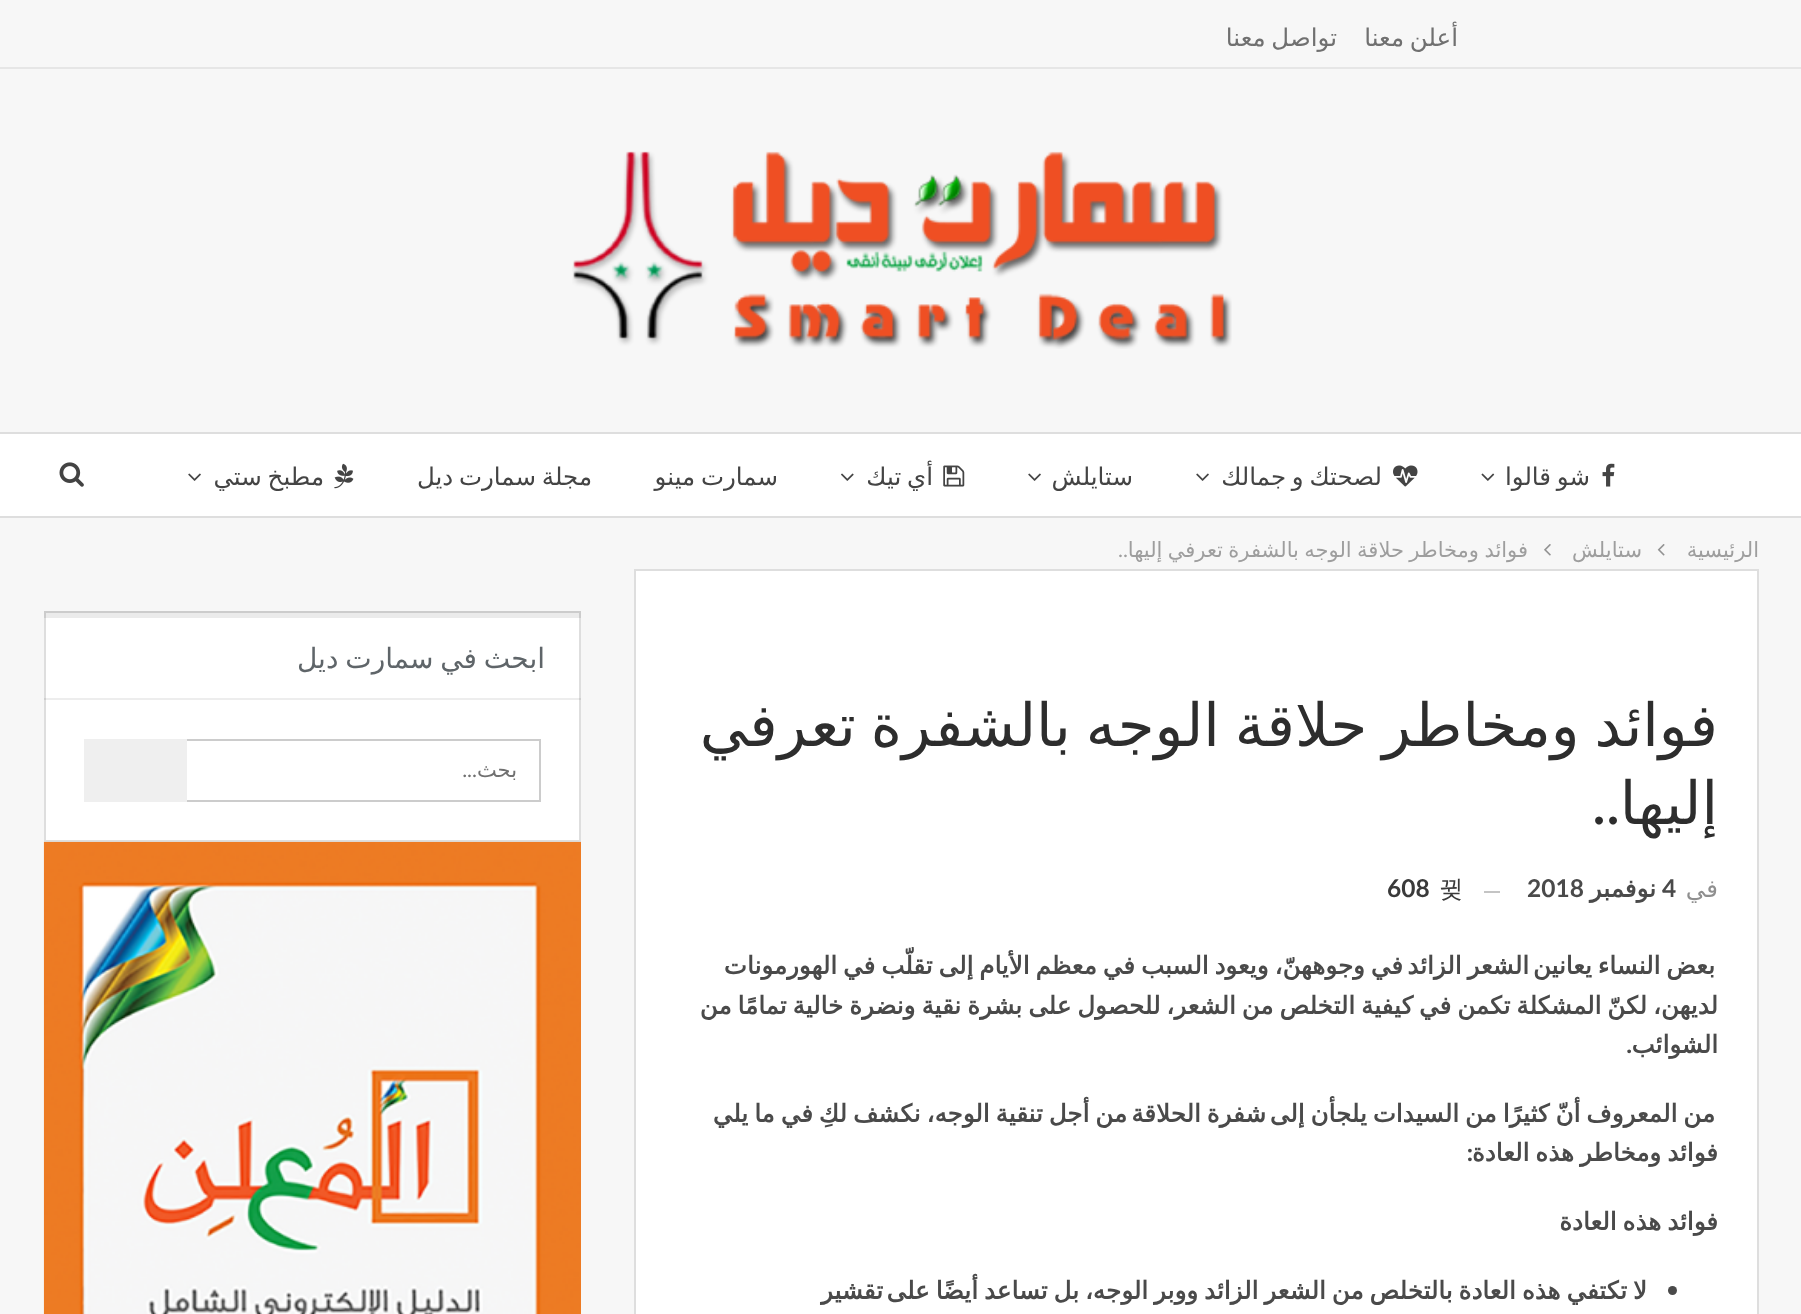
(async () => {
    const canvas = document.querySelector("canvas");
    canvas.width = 1801;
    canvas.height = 1314;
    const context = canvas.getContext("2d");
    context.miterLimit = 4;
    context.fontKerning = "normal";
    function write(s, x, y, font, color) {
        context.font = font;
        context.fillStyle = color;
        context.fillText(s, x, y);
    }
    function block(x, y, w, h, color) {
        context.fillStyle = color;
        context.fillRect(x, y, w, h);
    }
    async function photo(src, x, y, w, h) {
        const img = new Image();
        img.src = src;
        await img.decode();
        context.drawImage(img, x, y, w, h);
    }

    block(0, 0, 1801, 1314, "rgb(247, 247, 247)");
    block(0, 67, 1801, 2, "rgb(230, 230, 230)");
    context.wordSpacing = "-2px";
    context.direction = "rtl";
    write("أعلن معنا", 1458, 46, "24.5px DejaVu Sans", "rgb(112, 112, 112)");
    write("تواصل معنا", 1337, 46, "24.5px DejaVu Sans", "rgb(112, 112, 112)");
    await photo("media/1.png", 572, 151, 660, 198);
    block(0, 434, 1801, 82, "rgb(255, 255, 255)");
    block(0, 432, 1801, 2, "rgb(222, 222, 222)");
    block(0, 516, 1801, 2, "rgb(222, 222, 222)");
    await photo("media/2.png", 1602, 463, 13, 24);
    write("شو قالوا", 1590, 485, "24.5px DejaVu Sans", "rgb(68, 68, 68)");
    await photo("media/3.png", 1481, 473, 14, 8);
    await photo("media/4.png", 1393, 465, 25, 22);
    write("لصحتك و جمالك", 1382, 485, "24.5px DejaVu Sans", "rgb(68, 68, 68)");
    await photo("media/5.png", 1196, 473, 13, 8);
    context.wordSpacing = "0px";
    write("ستايلش", 1133, 485, "24.5px DejaVu Sans", "rgb(68, 68, 68)");
    await photo("media/5.png", 1028, 473, 13, 8);
    await photo("media/6.png", 943, 465, 22, 22);
    context.wordSpacing = "-2px";
    write("أي تيك", 933, 485, "24.5px DejaVu Sans", "rgb(68, 68, 68)");
    await photo("media/7.png", 841, 473, 13, 8);
    write("سمارت مينو", 778, 485, "24.5px DejaVu Sans", "rgb(68, 68, 68)");
    write("مجلة سمارت ديل", 592, 485, "24.5px DejaVu Sans", "rgb(68, 68, 68)");
    await photo("media/8.png", 334, 463, 20, 26);
    write("مطبخ ستي", 324, 485, "24.5px DejaVu Sans", "rgb(68, 68, 68)");
    await photo("media/5.png", 188, 473, 13, 8);
    await photo("media/9.png", 59, 462, 25, 25);
    context.wordSpacing = "0px";
    write("الرئيسية", 1759, 557, "21px DejaVu Sans", "rgb(158, 158, 158)");
    await photo("media/10.png", 1657, 544, 8, 12);
    write("ستايلش", 1642, 557, "21px DejaVu Sans", "rgb(158, 158, 158)");
    await photo("media/11.png", 1544, 544, 7, 12);
    context.wordSpacing = "-1.25px";
    write("فوائد ومخاطر حلاقة الوجه بالشفرة تعرفي إليها", 1528, 557, "21px DejaVu Sans", "rgb(158, 158, 158)");
    context.wordSpacing = "0px";
    write("..", 1128, 557, "21px Lato", "rgb(158, 158, 158)");
    context.fillStyle = "rgb(255, 255, 255)";
    context.beginPath();
    context.rect(635, 570, 1123, 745);
    context.fill();
    context.strokeStyle = "rgb(222, 222, 222)";
    context.lineWidth = 2;
    context.stroke();
    context.save();
    context.beginPath();
    context.rect(674, 646, 1045, 266);
    context.clip();
    context.wordSpacing = "-4px";
    write("فوائد ومخاطر حلاقة الوجه بالشفرة تعرفي", 1718, 746, "59.5px DejaVu Sans", "rgb(45, 45, 45)");
    context.restore();
    write("إليها", 1718, 824, "59.5px DejaVu Sans", "rgb(45, 45, 45)");
    write("..", 1620, 824, "500 59.5px Lato", "rgb(45, 45, 45)");
    write("في", 1718, 897, "24.5px DejaVu Sans", "rgb(143, 143, 143)");
    context.direction = "ltr";
    write("4", 1662, 897, "bold 24.5px Lato", "rgb(74, 74, 74)");
    context.direction = "rtl";
    write("نوفمبر", 1656, 897, "bold 24.5px DejaVu Sans", "rgb(74, 74, 74)");
    context.direction = "ltr";
    write("2018", 1527, 897, "bold 24.5px Lato", "rgb(74, 74, 74)");
    block(1484, 891, 16, 2, "rgb(196, 196, 196)");
    write("뀢", 1439, 897, "500 24.5px WenQuanYi Zen Hei", "rgb(58, 58, 58)");
    write("608", 1387, 897, "bold 24.5px Lato", "rgb(58, 58, 58)");
    context.wordSpacing = "-1.8px";
    context.direction = "rtl";
    write("بعض النساء يعانين", 1715, 974, "bold 24.5px DejaVu Sans", "rgb(74, 74, 74)");
    write("في وجوههنّ، ويعود السبب في معظم الأيام إلى تقلّب في الهورمونات", 1403, 974, "bold 24.5px DejaVu Sans", "rgb(74, 74, 74)");
    write("الشعر الزائد", 1529, 974, "bold 24.5px DejaVu Sans", "rgb(74, 74, 74)");
    write("لديهن، لكنّ المشكلة تكمن في كيفية التخلص من الشعر، للحصول على بشرة نقية ونضرة خالية تمامًا من", 1718, 1014, "bold 24.5px DejaVu Sans", "rgb(74, 74, 74)");
    context.wordSpacing = "0px";
    write("الشوائب", 1718, 1053, "bold 24.5px DejaVu Sans", "rgb(74, 74, 74)");
    write(".", 1632, 1053, "bold 24.5px Lato", "rgb(74, 74, 74)");
    context.wordSpacing = "-1.8px";
    write("من المعروف أنّ كثيرًا من السيدات يلجأن إلى", 1715, 1122, "bold 24.5px DejaVu Sans", "rgb(74, 74, 74)");
    write("من أجل تنقية الوجه، نكشف لكِ في ما يلي", 1127, 1122, "bold 24.5px DejaVu Sans", "rgb(74, 74, 74)");
    write("شفرة الحلاقة", 1266, 1122, "bold 24.5px DejaVu Sans", "rgb(74, 74, 74)");
    write("فوائد ومخاطر هذه العادة", 1718, 1161, "bold 24.5px DejaVu Sans", "rgb(74, 74, 74)");
    context.wordSpacing = "0px";
    write(":", 1473, 1161, "bold 24.5px Lato", "rgb(74, 74, 74)");
    context.wordSpacing = "-1.8px";
    write("فوائد هذه العادة", 1718, 1230, "bold 24.5px DejaVu Sans", "rgb(74, 74, 74)");
    context.beginPath();
    context.arc(1672.5, 1290.5, 4.5, 0, Math.PI * 2);
    context.fill();
    write("لا تكتفي هذه العادة بالتخلص من الشعر الزائد ووبر الوجه، بل تساعد أيضًا على", 1647, 1299, "bold 24.5px DejaVu Sans", "rgb(74, 74, 74)");
    context.wordSpacing = "0px";
    write("تقشير", 883, 1299, "bold 24.5px DejaVu Sans", "rgb(74, 74, 74)");
    context.fillStyle = "rgb(255, 255, 255)";
    context.beginPath();
    context.rect(45, 612, 535, 229);
    context.fill();
    context.stroke();
    block(44, 611, 537, 7, "rgba(0, 0, 0, 0.08)");
    context.wordSpacing = "-2px";
    write("ابحث في سمارت ديل", 545, 668, "28px DejaVu Sans", "rgb(95, 101, 105)");
    block(44, 698, 537, 2, "rgba(0, 0, 0, 0.07)");
    context.strokeStyle = "rgb(204, 204, 204)";
    context.strokeRect(85, 740, 455, 61);
    context.wordSpacing = "0px";
    write("بحث", 517, 777, "21px DejaVu Sans", "rgb(112, 112, 112)");
    write("...", 477, 777, "21px Lato", "rgb(112, 112, 112)");
    block(84, 739, 103, 63, "rgb(239, 239, 239)");
    await photo("media/12.png", 43, 841, 538, 473);
})();
